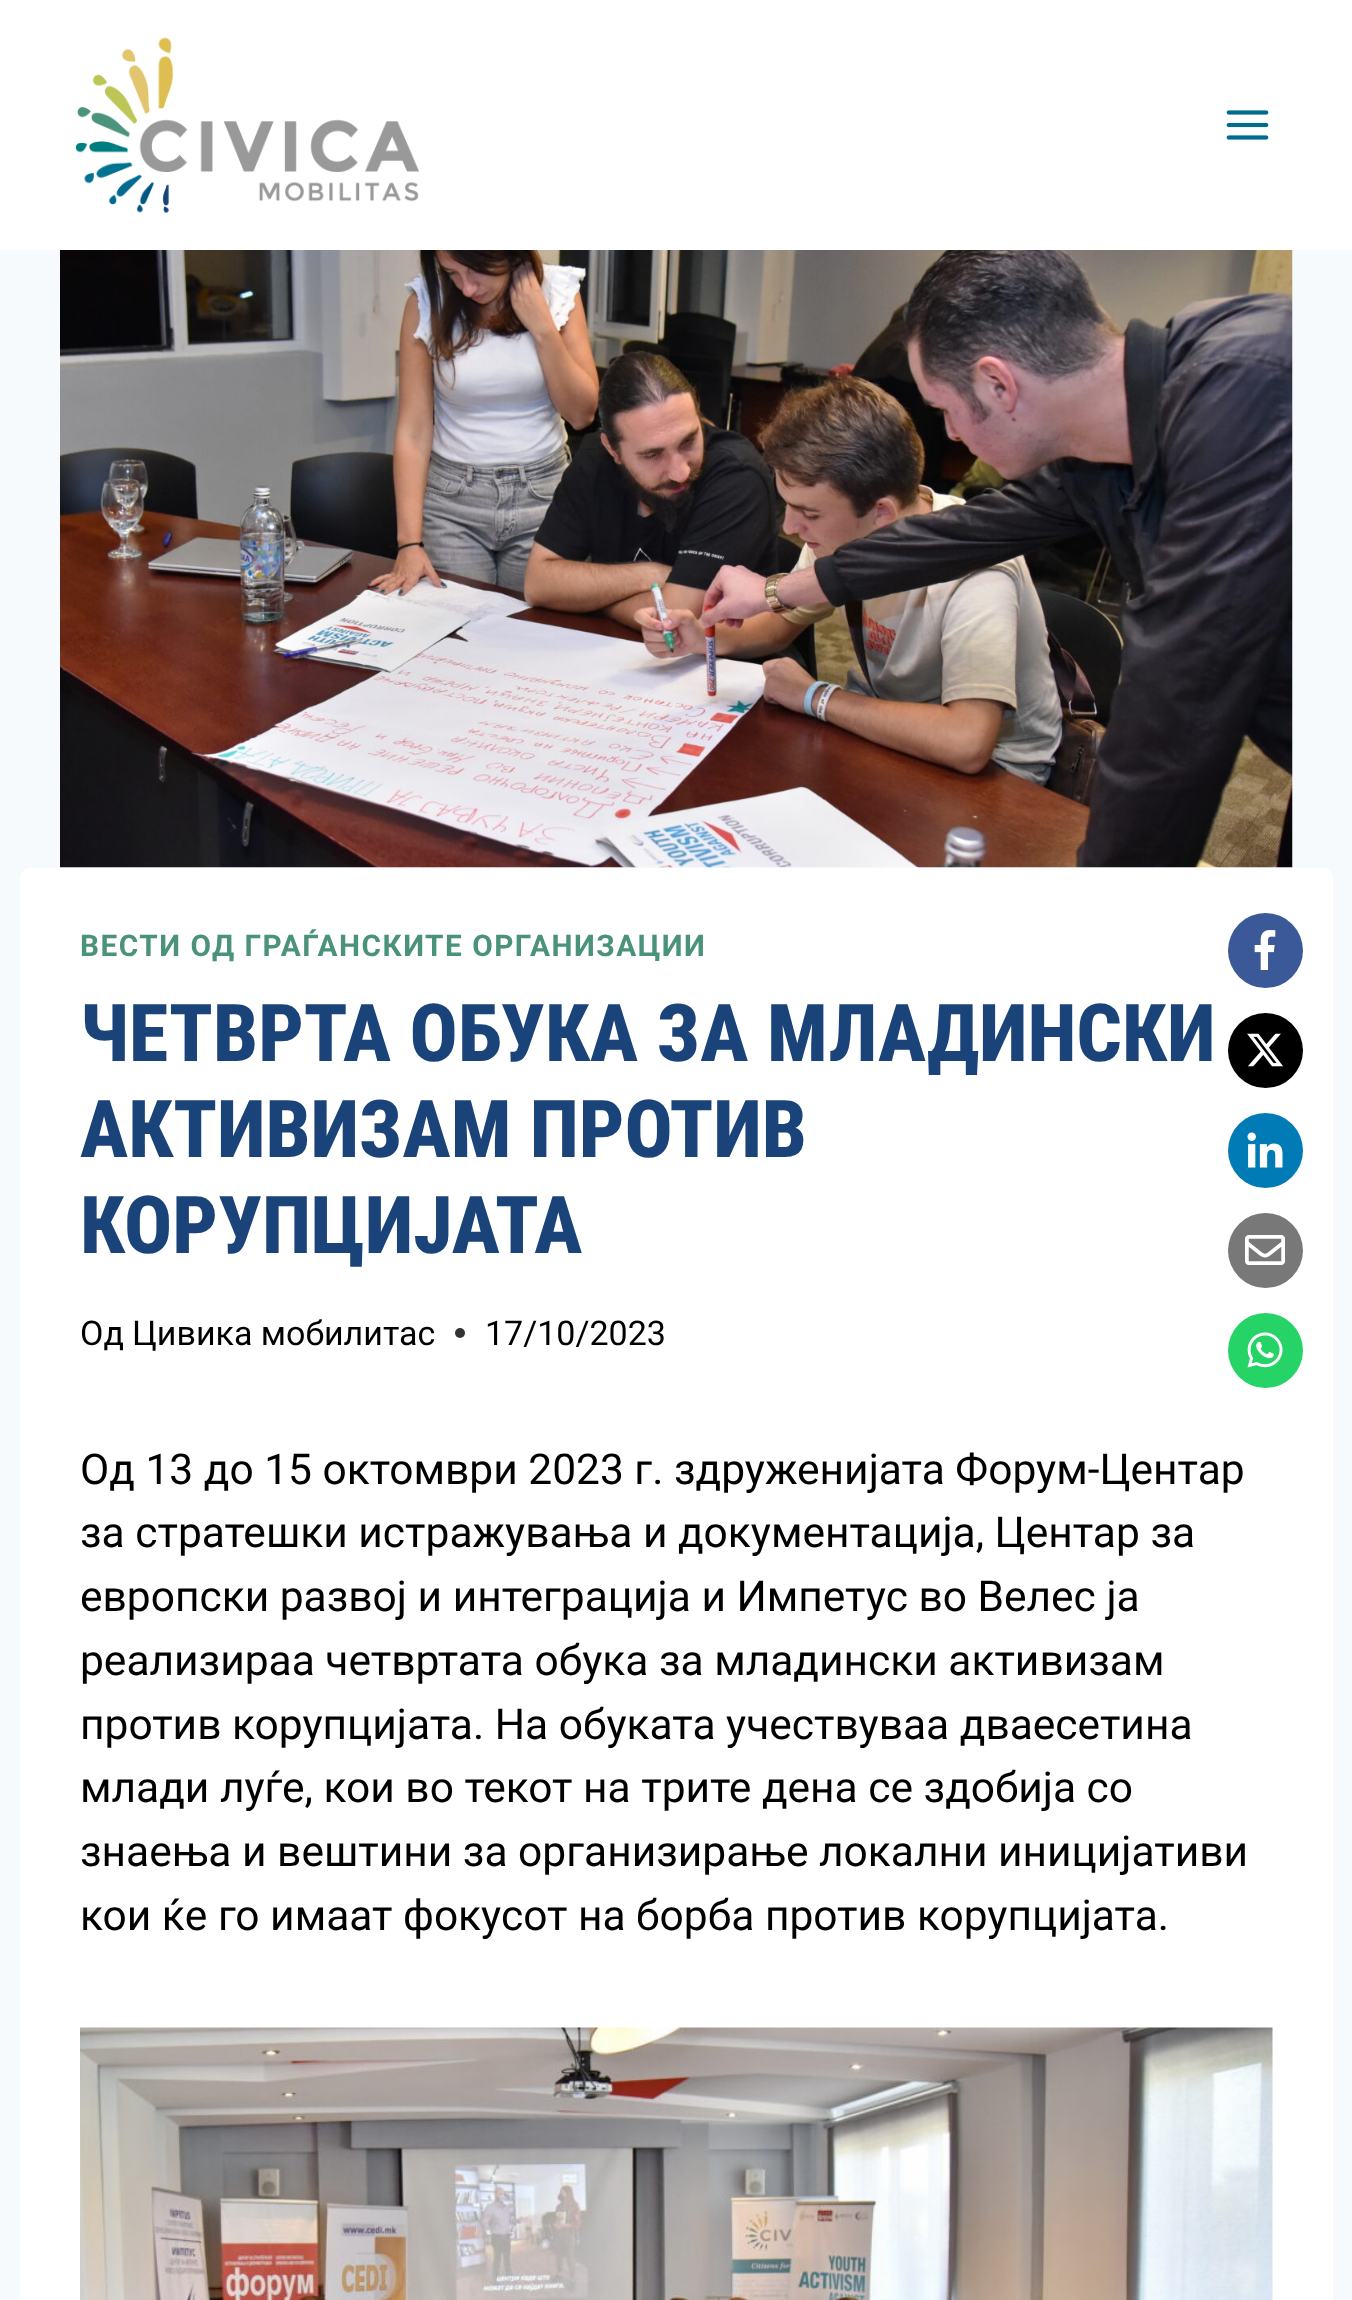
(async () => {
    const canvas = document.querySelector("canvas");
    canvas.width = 1352;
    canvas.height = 2300;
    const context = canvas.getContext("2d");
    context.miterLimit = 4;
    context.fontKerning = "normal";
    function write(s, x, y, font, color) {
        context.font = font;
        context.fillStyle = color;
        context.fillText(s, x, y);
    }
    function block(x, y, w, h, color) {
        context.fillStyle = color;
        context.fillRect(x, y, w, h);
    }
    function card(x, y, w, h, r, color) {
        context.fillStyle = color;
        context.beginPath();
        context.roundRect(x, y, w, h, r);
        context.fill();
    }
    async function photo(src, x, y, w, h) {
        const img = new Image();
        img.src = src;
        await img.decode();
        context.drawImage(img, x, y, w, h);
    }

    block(0, 0, 1352, 2300, "rgb(247, 250, 252)");
    block(0, 0, 1352, 250, "rgb(255, 255, 255)");
    await photo("media/1.png", 75, 37, 344, 176);
    await photo("media/2.png", 1226, 110, 43, 30);
    await photo("media/3.png", 60, 250, 1233, 618);
    card(20, 868, 1313, 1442, 10, "rgb(255, 255, 255)");
    context.letterSpacing = "1.5px";
    write("ВЕСТИ ОД ГРАЃАНСКИТЕ ОРГАНИЗАЦИИ", 80, 956, "bold 29.75px Roboto", "rgb(74, 146, 123)");
    context.letterSpacing = "0px";
    write("ЧЕТВРТА ОБУКА ЗА МЛАДИНСКИ", 80, 1061, "800 80px Roboto Condensed", "rgb(26, 67, 121)");
    write("АКТИВИЗАМ ПРОТИВ", 80, 1157, "800 80px Roboto Condensed", "rgb(26, 67, 121)");
    write("КОРУПЦИЈАТА", 80, 1253, "800 80px Roboto Condensed", "rgb(26, 67, 121)");
    write("Од", 80, 1345, "34px Roboto", "rgb(0, 0, 0)");
    write("Цивика мобилитас", 132, 1345, "34px Roboto", "rgb(0, 0, 0)");
    context.fillStyle = "rgb(51, 51, 51)";
    context.beginPath();
    context.arc(460, 1333, 5, 0, Math.PI * 2);
    context.fill();
    write("17/10/2023", 485, 1345, "34px Roboto", "rgb(0, 0, 0)");
    context.fillStyle = "rgb(59, 89, 152)";
    context.beginPath();
    context.arc(1265.5, 950.5, 37.5, 0, Math.PI * 2);
    context.fill();
    await photo("media/4.png", 1254, 930, 22, 40);
    context.fillStyle = "rgb(0, 0, 0)";
    context.beginPath();
    context.arc(1265.5, 1050.5, 37.5, 0, Math.PI * 2);
    context.fill();
    await photo("media/5.png", 1247, 1033, 36, 34);
    context.fillStyle = "rgb(0, 123, 182)";
    context.beginPath();
    context.arc(1265.5, 1150.5, 37.5, 0, Math.PI * 2);
    context.fill();
    await photo("media/6.png", 1247, 1132, 36, 36);
    context.fillStyle = "rgb(120, 120, 120)";
    context.beginPath();
    context.arc(1265.5, 1250.5, 37.5, 0, Math.PI * 2);
    context.fill();
    await photo("media/7.png", 1245, 1235, 40, 30);
    context.fillStyle = "rgb(37, 211, 102)";
    context.beginPath();
    context.arc(1265.5, 1350.5, 37.5, 0, Math.PI * 2);
    context.fill();
    await photo("media/8.png", 1247, 1332, 36, 36);
    write("Од 13 до 15 октомври 2023 г. здруженијата Форум-Центар", 80, 1484, "42.5px Roboto", "rgb(0, 0, 0)");
    write("за стратешки истражувања и документација, Центар за", 80, 1547, "42.5px Roboto", "rgb(0, 0, 0)");
    write("европски развој и интеграција и Импетус во Велес ја", 80, 1611, "42.5px Roboto", "rgb(0, 0, 0)");
    write("реализираа четвртата обука за младински активизам", 80, 1675, "42.5px Roboto", "rgb(0, 0, 0)");
    write("против корупцијата. На обуката учествуваа дваесетина", 80, 1739, "42.5px Roboto", "rgb(0, 0, 0)");
    write("млади луѓе, кои во текот на трите дена се здобија со", 80, 1802, "42.5px Roboto", "rgb(0, 0, 0)");
    write("знаења и вештини за организирање локални иницијативи", 80, 1866, "42.5px Roboto", "rgb(0, 0, 0)");
    write("кои ќе го имаат фокусот на борба против корупцијата.", 80, 1930, "42.5px Roboto", "rgb(0, 0, 0)");
    await photo("media/9.png", 80, 2027, 1193, 273);
})();
